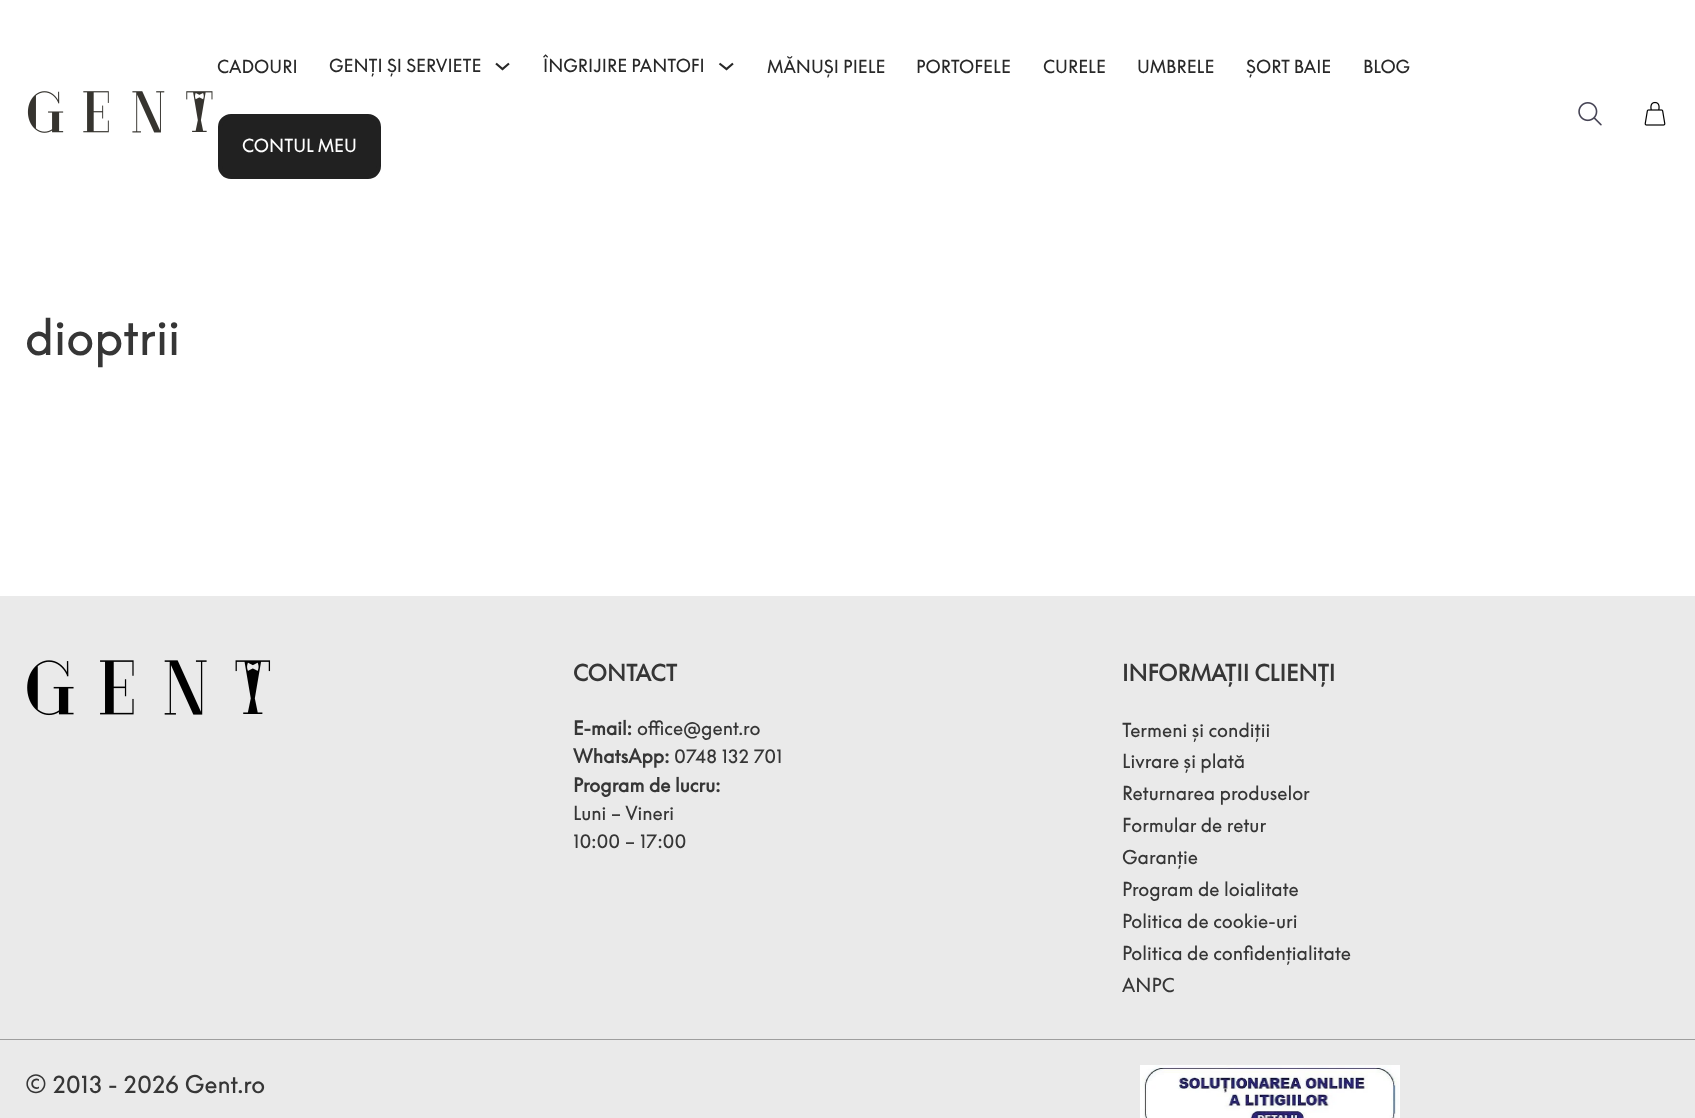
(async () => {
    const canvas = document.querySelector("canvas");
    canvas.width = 1695;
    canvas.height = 1118;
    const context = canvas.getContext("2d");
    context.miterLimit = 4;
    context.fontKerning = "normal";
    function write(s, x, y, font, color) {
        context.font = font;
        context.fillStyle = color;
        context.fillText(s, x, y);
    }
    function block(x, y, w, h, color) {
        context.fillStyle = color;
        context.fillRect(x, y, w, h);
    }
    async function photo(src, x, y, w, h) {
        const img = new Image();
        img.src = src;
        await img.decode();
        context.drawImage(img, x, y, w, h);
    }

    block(0, 0, 1695, 1118, "rgb(255, 255, 255)");
    await photo("media/1.png", 27, 91, 186, 42);
    write("CADOURI", 217, 73, "17.5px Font", "rgb(40, 40, 40)");
    write("GENȚI ȘI SERVIETE", 329, 72, "17.5px Font", "rgb(40, 40, 40)");
    context.beginPath();
    context.moveTo(496, 63.5);
    context.lineTo(502.5, 69);
    context.lineTo(509, 63.5);
    context.strokeStyle = "rgb(40, 40, 40)";
    context.lineWidth = 2.2;
    context.stroke();
    write("ÎNGRIJIRE PANTOFI", 543, 72, "17.5px Font", "rgb(40, 40, 40)");
    context.beginPath();
    context.moveTo(719.5, 63.5);
    context.lineTo(726.5, 69);
    context.lineTo(733, 63.5);
    context.stroke();
    write("MĂNUȘI PIELE", 767, 73, "17.5px Font", "rgb(40, 40, 40)");
    write("PORTOFELE", 916, 73, "17.5px Font", "rgb(40, 40, 40)");
    write("CURELE", 1043, 73, "17.5px Font", "rgb(40, 40, 40)");
    write("UMBRELE", 1137, 73, "17.5px Font", "rgb(40, 40, 40)");
    write("ȘORT BAIE", 1246, 73, "17.5px Font", "rgb(40, 40, 40)");
    write("BLOG", 1363, 73, "17.5px Font", "rgb(40, 40, 40)");
    context.fillStyle = "rgb(33, 33, 33)";
    context.beginPath();
    context.roundRect(220, 116, 159, 61, 11);
    context.fill();
    context.strokeStyle = "rgb(33, 33, 33)";
    context.lineWidth = 4;
    context.stroke();
    write("CONTUL MEU", 242, 152, "17.5px Font", "rgb(255, 255, 255)");
    await photo("media/2.png", 1578, 102, 24, 24);
    await photo("media/3.png", 1644, 101, 22, 25);
    write("dioptrii", 25, 355, "48px Font", "rgb(54, 54, 54)");
    block(0, 596, 1695, 443, "rgb(234, 234, 234)");
    await photo("media/4.png", 27, 660, 244, 56);
    write("CONTACT", 573, 681, "bold 22px Font", "rgb(54, 54, 54)");
    write("E-mail:", 573, 735, "bold 18.75px Font", "rgb(54, 54, 54)");
    write("office@gent.ro", 637, 735, "18.75px Font", "rgb(54, 54, 54)");
    write("WhatsApp:", 573, 763, "bold 18.75px Font", "rgb(54, 54, 54)");
    write("0748 132 701", 674, 763, "18.75px Font", "rgb(54, 54, 54)");
    write("Program de lucru:", 573, 792, "bold 18.75px Font", "rgb(54, 54, 54)");
    write("Luni – Vineri", 573, 820, "18.75px Font", "rgb(54, 54, 54)");
    write("10:00 – 17:00", 573, 848, "18.75px Font", "rgb(54, 54, 54)");
    write("INFORMAȚII CLIENȚI", 1122, 681, "bold 22px Font", "rgb(54, 54, 54)");
    write("Termeni și condiții", 1122, 737, "18.75px Font", "rgb(54, 54, 54)");
    write("Livrare și plată", 1122, 768, "18.75px Font", "rgb(54, 54, 54)");
    write("Returnarea produselor", 1122, 800, "18.75px Font", "rgb(54, 54, 54)");
    write("Formular de retur", 1122, 832, "18.75px Font", "rgb(54, 54, 54)");
    write("Garanție", 1122, 864, "18.75px Font", "rgb(54, 54, 54)");
    write("Program de loialitate", 1122, 896, "18.75px Font", "rgb(54, 54, 54)");
    write("Politica de cookie-uri", 1122, 928, "18.75px Font", "rgb(54, 54, 54)");
    write("Politica de confidențialitate", 1122, 960, "18.75px Font", "rgb(54, 54, 54)");
    write("ANPC", 1122, 992, "18.75px Font", "rgb(54, 54, 54)");
    block(0, 1040, 1695, 78, "rgb(234, 234, 234)");
    block(0, 1039, 1695, 1, "rgb(158, 158, 158)");
    write("© 2013 - 2026 Gent.ro", 25, 1093, "23.75px Font", "rgb(54, 54, 54)");
    await photo("media/5.png", 1140, 1065, 260, 53);
})();
